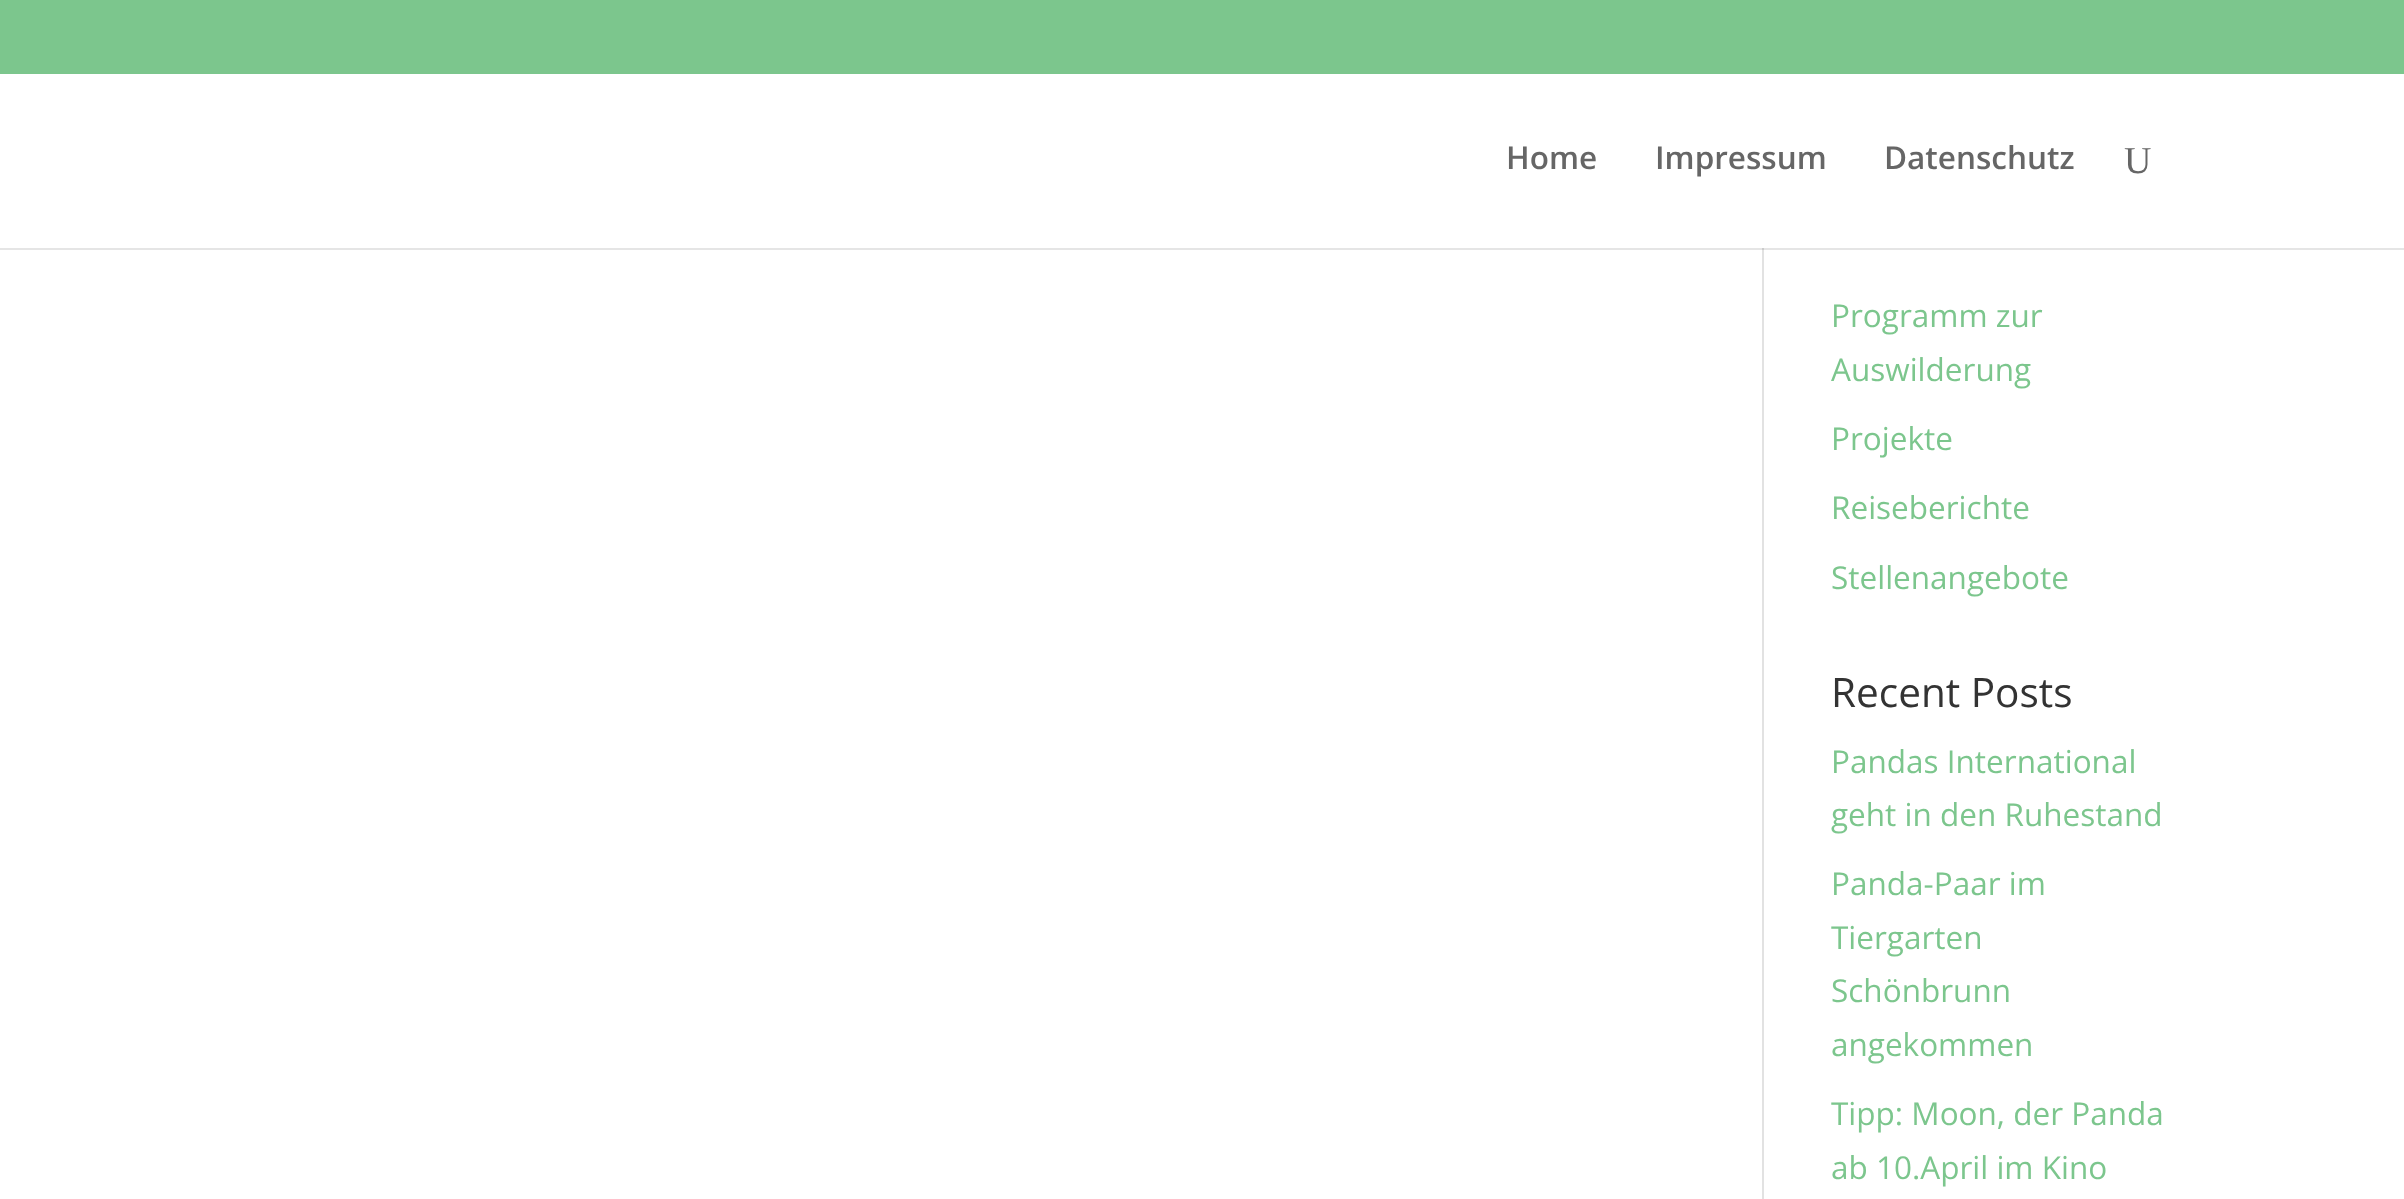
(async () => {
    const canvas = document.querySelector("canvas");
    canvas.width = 2404;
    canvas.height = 1199;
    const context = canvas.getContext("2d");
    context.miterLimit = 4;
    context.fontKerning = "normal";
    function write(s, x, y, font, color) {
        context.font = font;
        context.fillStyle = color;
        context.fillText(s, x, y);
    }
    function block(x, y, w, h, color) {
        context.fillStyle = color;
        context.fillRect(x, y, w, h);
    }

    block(0, 0, 2404, 1199, "rgb(255, 255, 255)");
    block(0, 0, 2404, 74, "rgb(124, 198, 141)");
    block(1762, 248, 2, 951, "rgb(226, 226, 226)");
    block(0, 248, 2404, 2, "rgba(0, 0, 0, 0.1)");
    write("Home", 1506, 169, "600 31.5px Open Sans", "rgb(102, 102, 102)");
    write("Impressum", 1655, 169, "600 31.5px Open Sans", "rgb(102, 102, 102)");
    write("Datenschutz", 1884, 169, "600 31.5px Open Sans", "rgb(102, 102, 102)");
    write("U", 2124, 173, "38px Liberation Serif", "rgb(102, 102, 102)");
    write("Programm zur", 1831, 327, "31.5px Open Sans", "rgb(124, 198, 141)");
    write("Auswilderung", 1831, 381, "31.5px Open Sans", "rgb(124, 198, 141)");
    write("Projekte", 1831, 450, "31.5px Open Sans", "rgb(124, 198, 141)");
    write("Reiseberichte", 1831, 519, "31.5px Open Sans", "rgb(124, 198, 141)");
    write("Stellenangebote", 1831, 589, "31.5px Open Sans", "rgb(124, 198, 141)");
    write("Recent Posts", 1831, 707, "40.5px Open Sans", "rgb(51, 51, 51)");
    write("Pandas International", 1831, 773, "31.5px Open Sans", "rgb(124, 198, 141)");
    write("geht in den Ruhestand", 1831, 826, "31.5px Open Sans", "rgb(124, 198, 141)");
    write("Panda-Paar im", 1831, 895, "31.5px Open Sans", "rgb(124, 198, 141)");
    write("Tiergarten", 1831, 949, "31.5px Open Sans", "rgb(124, 198, 141)");
    write("Schönbrunn", 1831, 1002, "31.5px Open Sans", "rgb(124, 198, 141)");
    write("angekommen", 1831, 1056, "31.5px Open Sans", "rgb(124, 198, 141)");
    write("Tipp: Moon, der Panda", 1831, 1125, "31.5px Open Sans", "rgb(124, 198, 141)");
    write("ab 10.April im Kino", 1831, 1179, "31.5px Open Sans", "rgb(124, 198, 141)");
})();
